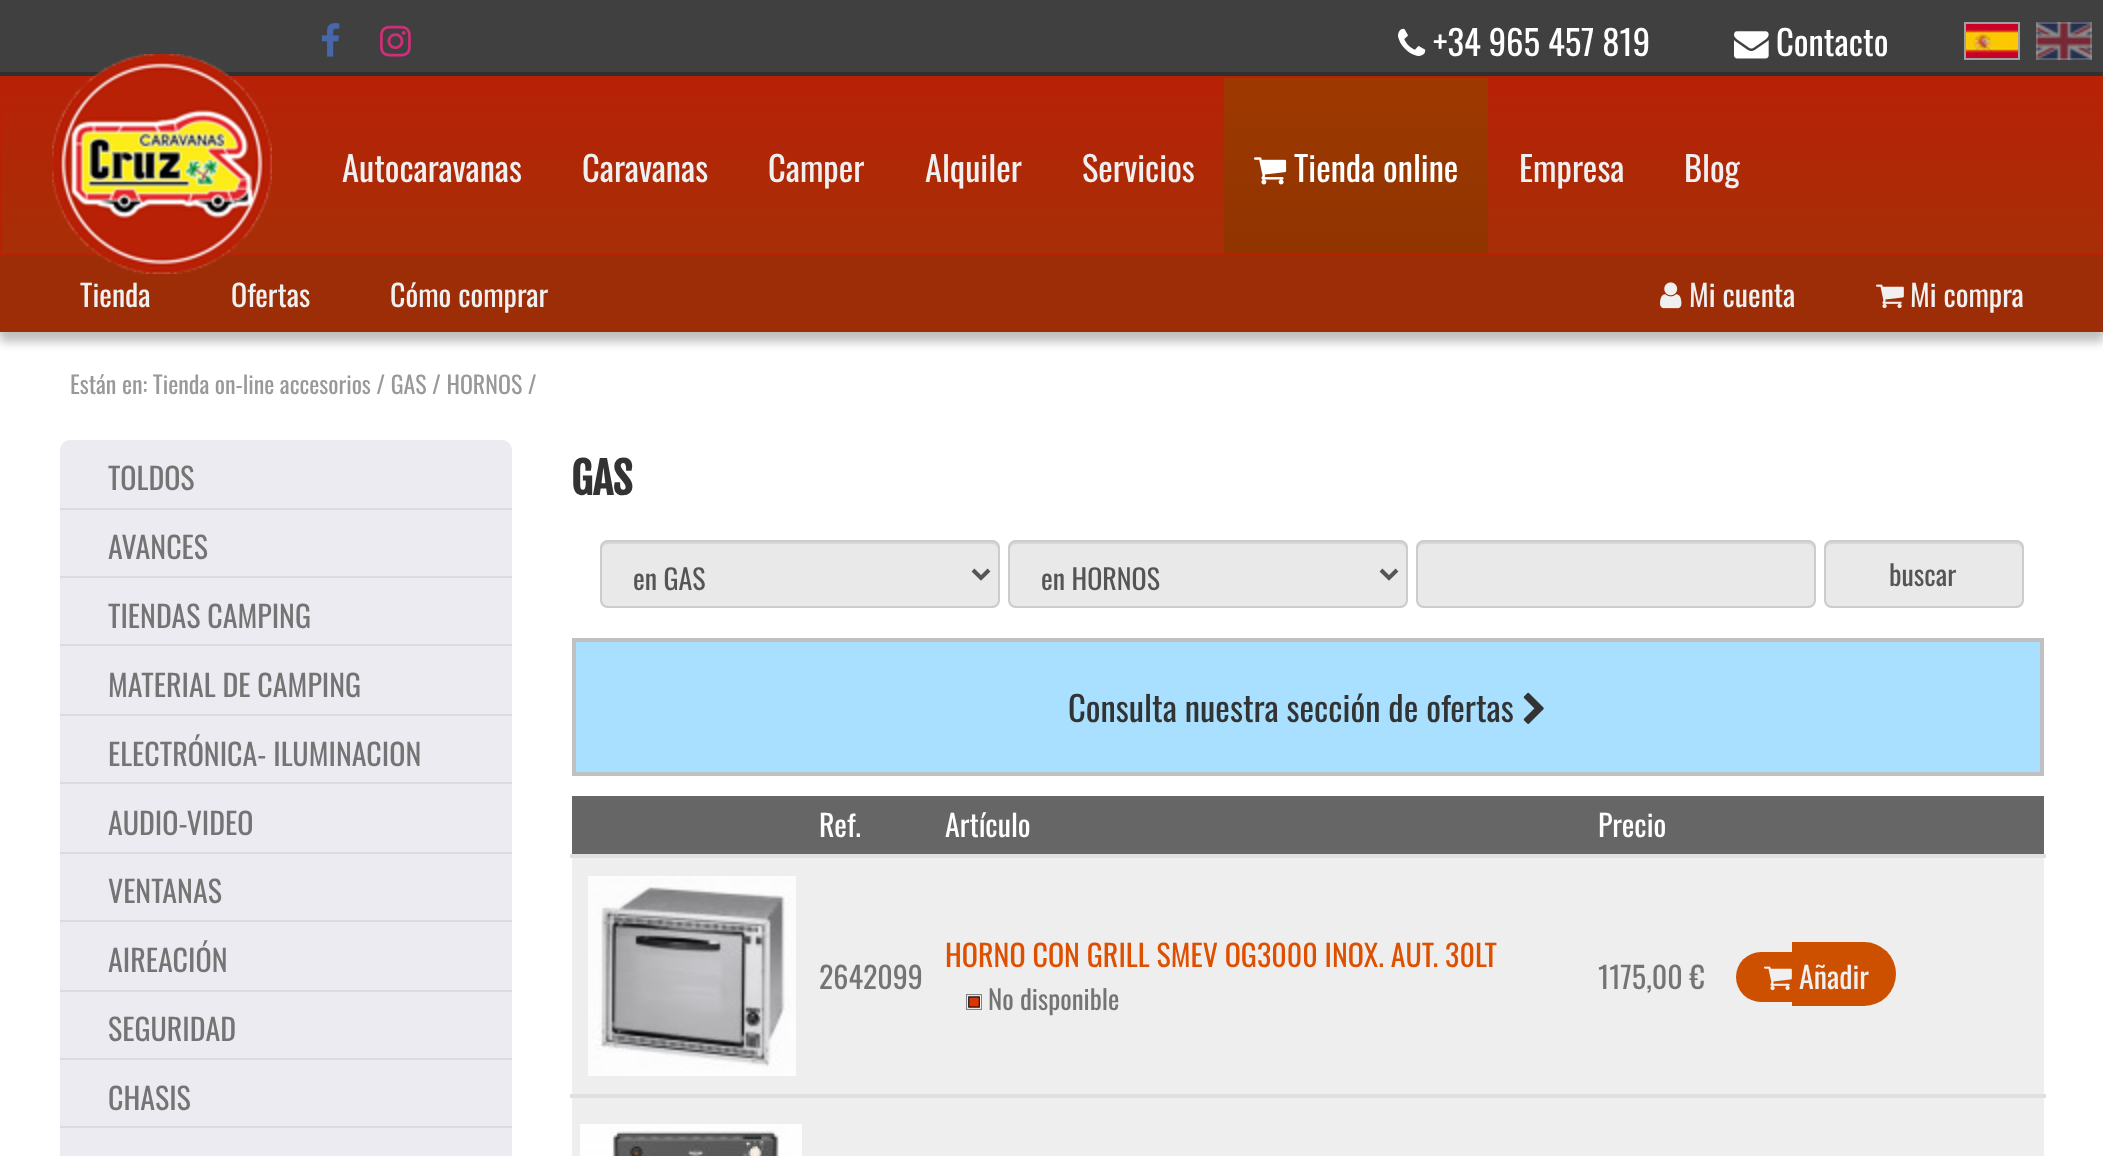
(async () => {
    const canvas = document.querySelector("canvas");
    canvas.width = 2103;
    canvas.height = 1156;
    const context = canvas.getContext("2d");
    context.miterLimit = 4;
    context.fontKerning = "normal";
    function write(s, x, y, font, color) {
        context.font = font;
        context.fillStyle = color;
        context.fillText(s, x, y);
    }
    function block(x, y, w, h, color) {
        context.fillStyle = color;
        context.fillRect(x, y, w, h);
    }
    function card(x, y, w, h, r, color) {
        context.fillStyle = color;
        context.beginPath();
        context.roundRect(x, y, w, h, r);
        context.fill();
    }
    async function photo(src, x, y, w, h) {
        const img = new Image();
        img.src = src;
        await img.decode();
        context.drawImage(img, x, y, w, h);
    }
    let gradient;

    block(0, 0, 2103, 1156, "rgb(240, 240, 240)");
    block(0, 336, 2103, 820, "rgb(255, 255, 255)");
    context.fillStyle = "rgb(192, 192, 192)";
    context.filter = "blur(5px)";
    context.beginPath();
    context.rect(0, 10, 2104, 332);
    context.fill();
    context.filter = "none";
    block(0, 0, 2103, 72, "rgb(64, 64, 64)");
    block(0, 72, 2103, 4, "rgb(48, 48, 48)");
    await photo("media/1.png", 321, 23, 19, 34);
    await photo("media/2.png", 380, 25, 31, 32);
    await photo("media/3.png", 1398, 28, 28, 28);
    write("+34 965 457 819", 1433, 56, "34.7px Oswald", "rgb(255, 255, 255)");
    await photo("media/4.png", 1734, 31, 35, 28);
    write("Contacto", 1776, 56, "34.7px Oswald", "rgb(255, 255, 255)");
    await photo("media/5.png", 1966, 24, 52, 34);
    context.strokeStyle = "rgb(160, 160, 160)";
    context.lineWidth = 2;
    context.strokeRect(1965, 23, 54, 36);
    await photo("media/6.png", 2036, 22, 56, 38);
    context.strokeStyle = "rgba(160, 160, 160, 0.4)";
    context.strokeRect(2037, 23, 54, 36);
    gradient = context.createLinearGradient(1052, 78, 1052, 254);
    gradient.addColorStop(0, "rgb(184, 33, 6)");
    gradient.addColorStop(1, "rgb(167, 47, 7)");
    context.fillStyle = gradient;
    context.fillRect(2, 78, 2100, 176);
    context.strokeStyle = "rgb(184, 33, 6)";
    context.strokeRect(1, 77, 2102, 178);
    block(0, 256, 2103, 76, "rgb(156, 45, 6)");
    await photo("media/7.png", 52, 54, 220, 220);
    write("Autocaravanas", 342, 182, "34.5px Oswald", "rgb(240, 240, 240)");
    write("Caravanas", 582, 182, "34.5px Oswald", "rgb(240, 240, 240)");
    write("Camper", 768, 182, "34.5px Oswald", "rgb(240, 240, 240)");
    write("Alquiler", 925, 182, "34.5px Oswald", "rgb(240, 240, 240)");
    write("Servicios", 1082, 182, "34.5px Oswald", "rgb(240, 240, 240)");
    gradient = context.createLinearGradient(1356, 78, 1356, 254);
    gradient.addColorStop(0, "rgb(158, 57, 0)");
    gradient.addColorStop(1, "rgb(144, 52, 0)");
    context.fillStyle = gradient;
    context.fillRect(1224, 78, 264, 176);
    await photo("media/8.png", 1254, 157, 33, 28);
    write("Tienda online", 1294, 182, "34.5px Oswald", "rgb(255, 255, 255)");
    write("Empresa", 1519, 182, "34.5px Oswald", "rgb(240, 240, 240)");
    write("Blog", 1684, 182, "34.5px Oswald", "rgb(240, 240, 240)");
    write("Tienda", 80, 307, "30px Oswald", "rgb(240, 240, 240)");
    write("Ofertas", 231, 307, "30px Oswald", "rgb(240, 240, 240)");
    write("Cómo comprar", 390, 307, "30px Oswald", "rgb(240, 240, 240)");
    await photo("media/9.png", 1660, 282, 22, 27);
    write("Mi cuenta", 1689, 307, "30px Oswald", "rgb(240, 240, 240)");
    await photo("media/10.png", 1876, 284, 28, 25);
    write("Mi compra", 1910, 307, "30px Oswald", "rgb(240, 240, 240)");
    write("Están en: Tienda on-line accesorios / GAS / HORNOS /", 70, 394, "24px Oswald", "rgb(153, 153, 153)");
    card(60, 440, 452, 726, 10, "rgb(235, 235, 241)");
    block(60, 508, 452, 2, "rgb(219, 219, 219)");
    write("TOLDOS", 108, 490, "30px Oswald", "rgb(116, 116, 116)");
    block(60, 576, 452, 2, "rgb(219, 219, 219)");
    write("AVANCES", 108, 559, "30px Oswald", "rgb(116, 116, 116)");
    block(60, 644, 452, 2, "rgb(219, 219, 219)");
    write("TIENDAS CAMPING", 108, 628, "30px Oswald", "rgb(116, 116, 116)");
    block(60, 714, 452, 2, "rgb(219, 219, 219)");
    write("MATERIAL DE CAMPING", 108, 697, "30px Oswald", "rgb(116, 116, 116)");
    block(60, 782, 452, 2, "rgb(219, 219, 219)");
    write("ELECTRÓNICA- ILUMINACION", 108, 766, "30px Oswald", "rgb(116, 116, 116)");
    block(60, 852, 452, 2, "rgb(219, 219, 219)");
    write("AUDIO-VIDEO", 108, 835, "30px Oswald", "rgb(116, 116, 116)");
    block(60, 920, 452, 2, "rgb(219, 219, 219)");
    write("VENTANAS", 108, 903, "30px Oswald", "rgb(116, 116, 116)");
    block(60, 990, 452, 2, "rgb(219, 219, 219)");
    write("AIREACIÓN", 108, 972, "30px Oswald", "rgb(116, 116, 116)");
    block(60, 1058, 452, 2, "rgb(219, 219, 219)");
    write("SEGURIDAD", 108, 1041, "30px Oswald", "rgb(116, 116, 116)");
    block(60, 1126, 452, 2, "rgb(219, 219, 219)");
    write("CHASIS", 108, 1110, "30px Oswald", "rgb(116, 116, 116)");
    write("GAS", 571, 495, "bold 43px Fjalla One", "rgb(51, 51, 51)");
    card(600, 540, 400, 68, 8, "rgb(233, 233, 233)");
    context.fillStyle = "rgb(216, 216, 216)";
    context.beginPath();
    context.moveTo(608, 544);
    context.lineTo(992, 544);
    context.bezierCurveTo(995, 544, 998, 547, 998, 550);
    context.bezierCurveTo(998, 546, 997, 542, 992, 542);
    context.lineTo(608, 542);
    context.bezierCurveTo(603, 542, 602, 546, 602, 550);
    context.bezierCurveTo(602, 547, 605, 544, 608, 544);
    context.closePath();
    context.fill();
    context.beginPath();
    context.roundRect(601, 541, 398, 66, 7);
    context.strokeStyle = "rgb(204, 204, 204)";
    context.stroke();
    context.beginPath();
    context.moveTo(973, 570);
    context.lineTo(981, 578);
    context.lineTo(989, 570);
    context.strokeStyle = "rgb(85, 85, 85)";
    context.lineWidth = 4;
    context.stroke();
    write("en GAS", 633, 590, "28px Oswald", "rgb(85, 85, 85)");
    card(1008, 540, 400, 68, 8, "rgb(233, 233, 233)");
    context.fillStyle = "rgb(216, 216, 216)";
    context.beginPath();
    context.moveTo(1016, 544);
    context.lineTo(1400, 544);
    context.bezierCurveTo(1403, 544, 1406, 547, 1406, 550);
    context.bezierCurveTo(1406, 546, 1405, 542, 1400, 542);
    context.lineTo(1016, 542);
    context.bezierCurveTo(1011, 542, 1010, 546, 1010, 550);
    context.bezierCurveTo(1010, 547, 1013, 544, 1016, 544);
    context.closePath();
    context.fill();
    context.beginPath();
    context.roundRect(1009, 541, 398, 66, 7);
    context.strokeStyle = "rgb(204, 204, 204)";
    context.lineWidth = 2;
    context.stroke();
    context.beginPath();
    context.moveTo(1381, 570);
    context.lineTo(1389, 578);
    context.lineTo(1397, 570);
    context.strokeStyle = "rgb(85, 85, 85)";
    context.lineWidth = 4;
    context.stroke();
    write("en HORNOS", 1041, 590, "28px Oswald", "rgb(85, 85, 85)");
    card(1416, 540, 400, 68, 8, "rgb(233, 233, 233)");
    context.fillStyle = "rgb(216, 216, 216)";
    context.beginPath();
    context.moveTo(1424, 544);
    context.lineTo(1808, 544);
    context.bezierCurveTo(1811, 544, 1814, 547, 1814, 550);
    context.bezierCurveTo(1814, 546, 1813, 542, 1808, 542);
    context.lineTo(1424, 542);
    context.bezierCurveTo(1419, 542, 1418, 546, 1418, 550);
    context.bezierCurveTo(1418, 547, 1421, 544, 1424, 544);
    context.closePath();
    context.fill();
    context.beginPath();
    context.roundRect(1417, 541, 398, 66, 7);
    context.strokeStyle = "rgb(204, 204, 204)";
    context.lineWidth = 2;
    context.stroke();
    card(1824, 540, 200, 68, 8, "rgb(233, 233, 233)");
    context.fillStyle = "rgb(216, 216, 216)";
    context.beginPath();
    context.moveTo(1832, 544);
    context.lineTo(2016, 544);
    context.bezierCurveTo(2019, 544, 2022, 547, 2022, 550);
    context.lineTo(2022, 548);
    context.bezierCurveTo(2022, 545, 2019, 542, 2016, 542);
    context.lineTo(1832, 542);
    context.bezierCurveTo(1829, 542, 1826, 545, 1826, 548);
    context.lineTo(1826, 550);
    context.bezierCurveTo(1826, 547, 1829, 544, 1832, 544);
    context.closePath();
    context.fill();
    context.beginPath();
    context.roundRect(1825, 541, 198, 66, 7);
    context.stroke();
    write("buscar", 1889, 586, "28px Oswald", "rgb(85, 85, 85)");
    context.fillStyle = "rgb(169, 224, 255)";
    context.beginPath();
    context.rect(574, 640, 1468, 134);
    context.fill();
    context.strokeStyle = "rgb(192, 192, 192)";
    context.lineWidth = 4;
    context.stroke();
    write("Consulta nuestra sección de ofertas", 1068, 722, "34.7px Oswald", "rgb(51, 51, 51)");
    await photo("media/11.png", 1523, 692, 21, 32);
    block(572, 796, 1472, 58, "rgb(102, 102, 102)");
    block(570, 854, 1476, 4, "rgb(224, 224, 224)");
    write("Ref.", 819, 837, "30px Oswald", "rgb(255, 255, 255)");
    write("Artículo", 945, 837, "30px Oswald", "rgb(255, 255, 255)");
    write("Precio", 1598, 837, "30px Oswald", "rgb(255, 255, 255)");
    block(572, 858, 1472, 236, "rgb(238, 238, 238)");
    block(570, 1094, 1476, 4, "rgb(224, 224, 224)");
    await photo("media/12.png", 588, 876, 208, 200);
    write("2642099", 819, 989, "30px Oswald", "rgb(116, 116, 116)");
    write("HORNO CON GRILL SMEV OG3000 INOX. AUT. 30LT", 945, 967, "30px Oswald", "rgb(222, 80, 0)");
    await photo("media/13.png", 966, 994, 16, 16);
    write("No disponible", 988, 1010, "27px Oswald", "rgb(116, 116, 116)");
    write("1175,00 €", 1598, 989, "30px Oswald", "rgb(116, 116, 116)");
    context.fillStyle = "rgb(205, 79, 0)";
    context.beginPath();
    context.roundRect(1736, 952, 56, 50, [25, 0, 0, 25]);
    context.fill();
    context.beginPath();
    context.roundRect(1792, 942, 104, 64, [0, 32, 32, 0]);
    context.fill();
    await photo("media/14.png", 1764, 966, 28, 25);
    write("Añadir", 1799, 989, "30px Oswald", "rgb(240, 240, 240)");
    block(572, 1098, 1472, 58, "rgb(238, 238, 238)");
    await photo("media/15.png", 580, 1124, 222, 32);
})();
